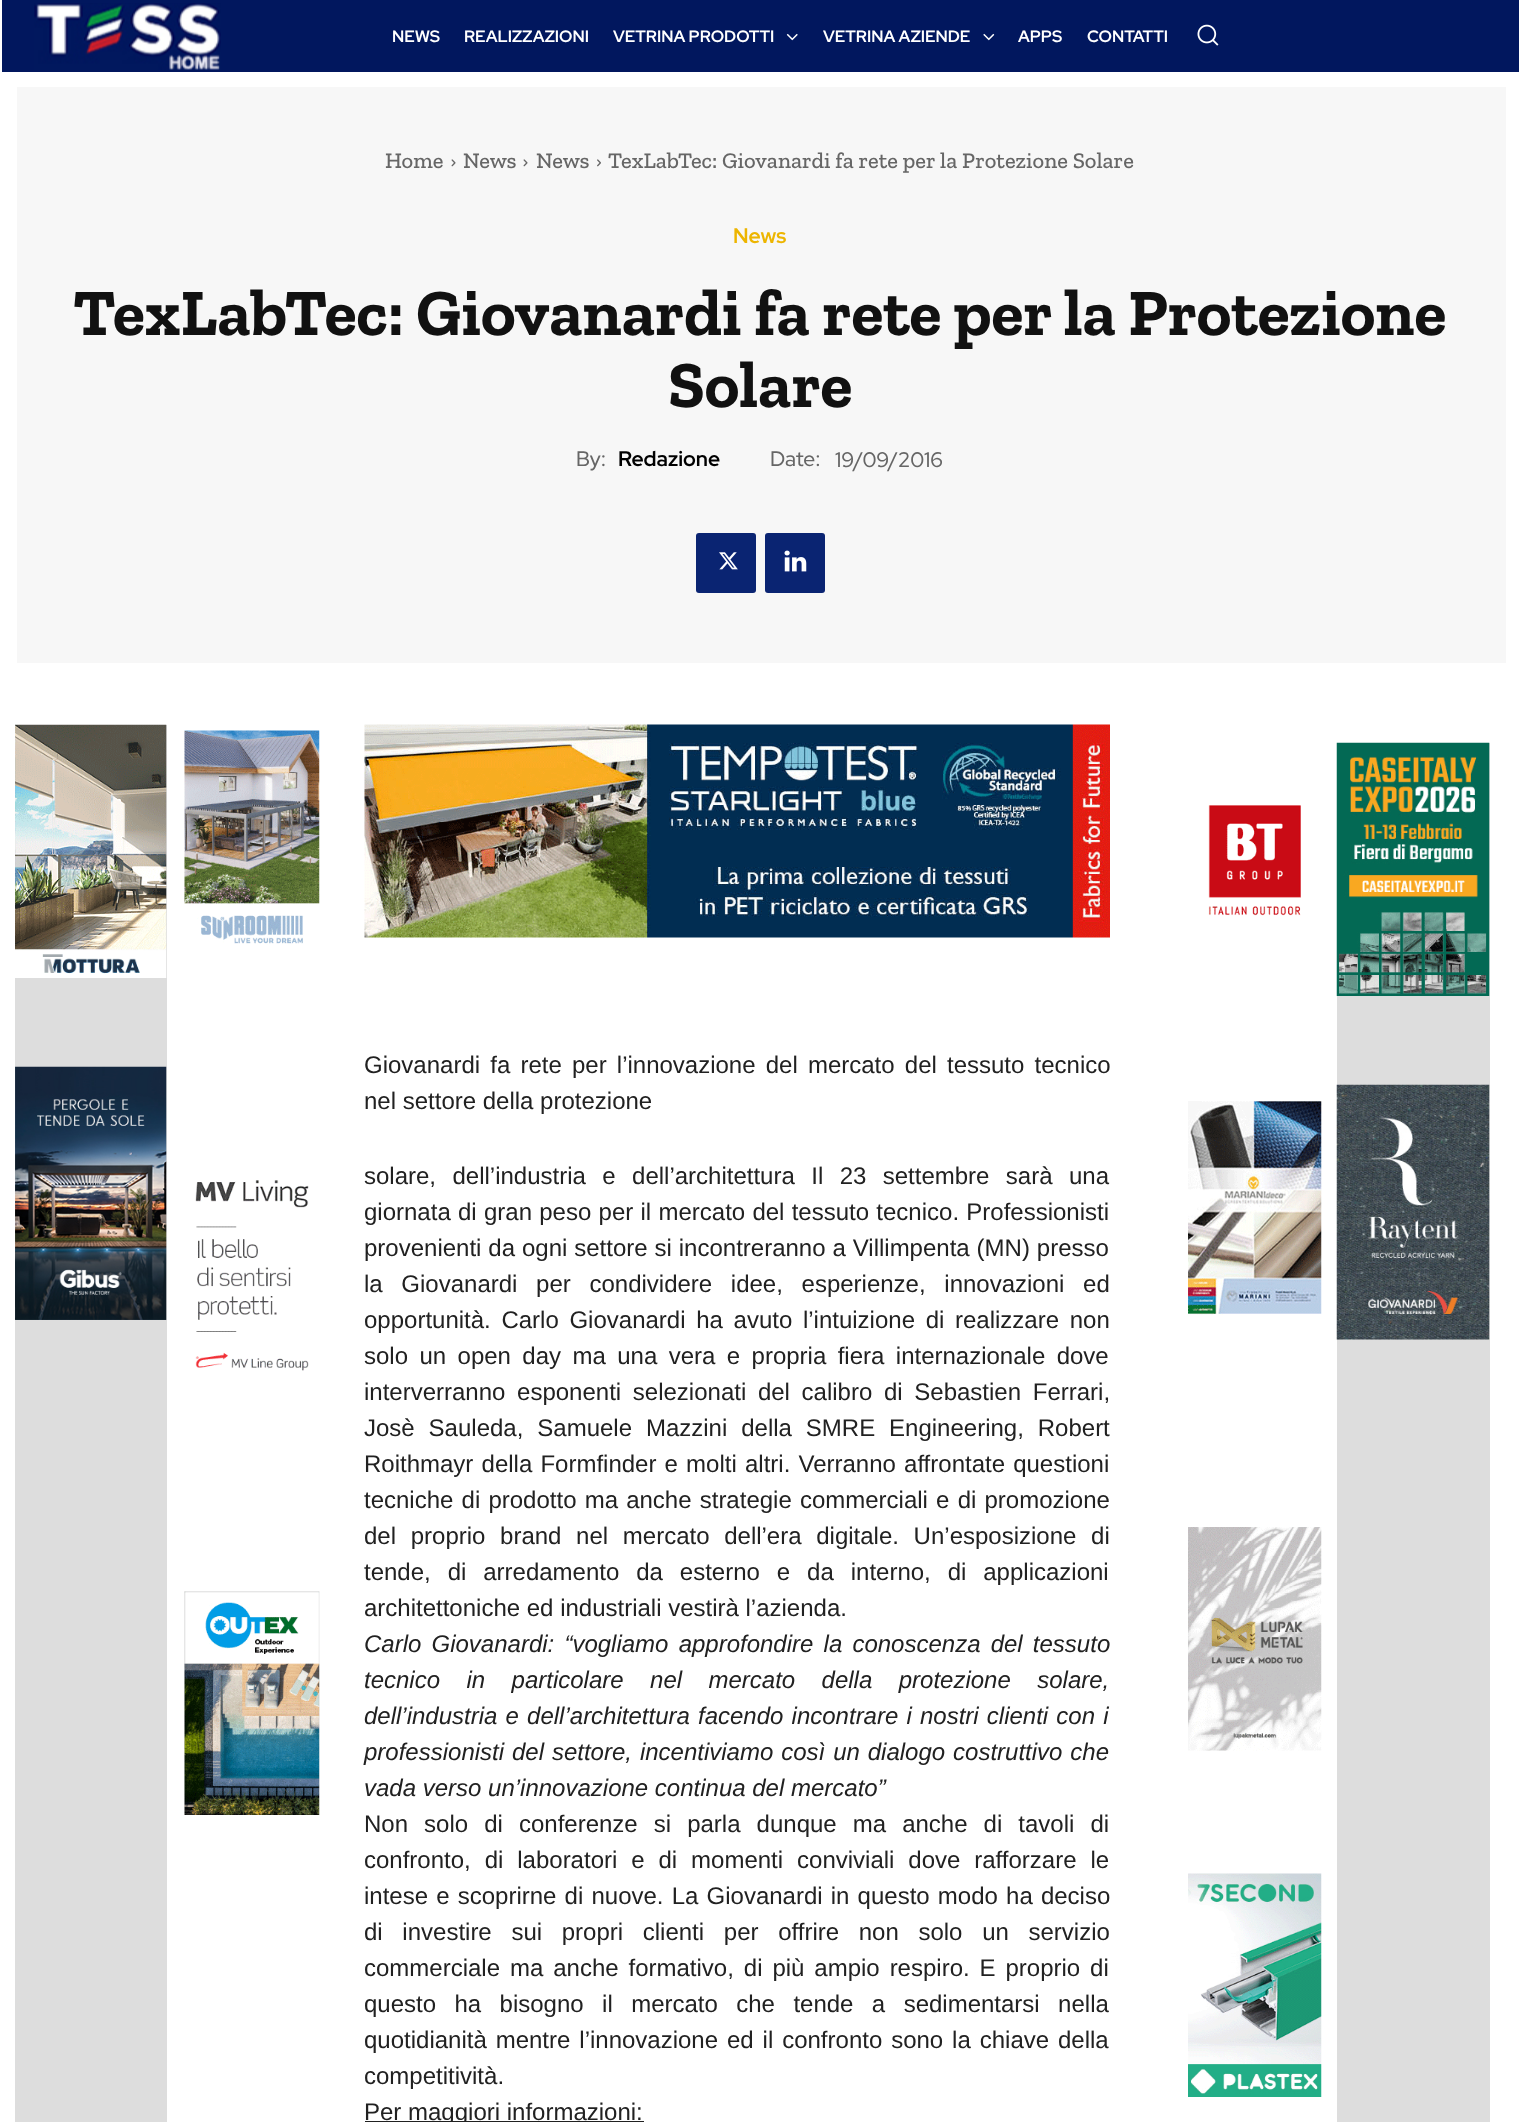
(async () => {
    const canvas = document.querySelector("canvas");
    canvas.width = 1519;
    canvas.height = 2122;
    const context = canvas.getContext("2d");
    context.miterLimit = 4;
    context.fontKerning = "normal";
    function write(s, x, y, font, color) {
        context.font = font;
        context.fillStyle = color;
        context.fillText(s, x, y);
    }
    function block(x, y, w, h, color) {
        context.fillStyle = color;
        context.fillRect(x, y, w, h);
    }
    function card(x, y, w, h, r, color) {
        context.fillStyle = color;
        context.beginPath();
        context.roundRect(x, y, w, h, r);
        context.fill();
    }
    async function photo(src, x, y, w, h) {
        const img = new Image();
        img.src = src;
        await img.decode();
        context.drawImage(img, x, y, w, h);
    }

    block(0, 0, 1519, 2122, "rgb(255, 255, 255)");
    block(2, 0, 1517, 72, "rgb(1, 23, 94)");
    await photo("media/1.png", 34, 3, 187, 67);
    write("NEWS", 392, 42, "bold 16.5px Red Hat Display", "rgb(255, 255, 255)");
    write("REALIZZAZIONI", 464, 42, "bold 16.5px Red Hat Display", "rgb(255, 255, 255)");
    write("VETRINA PRODOTTI", 613, 42, "bold 16.5px Red Hat Display", "rgb(255, 255, 255)");
    await photo("media/2.png", 786, 33, 12, 8);
    write("VETRINA AZIENDE", 823, 42, "bold 16.5px Red Hat Display", "rgb(255, 255, 255)");
    await photo("media/3.png", 983, 33, 12, 8);
    write("APPS", 1018, 42, "bold 16.5px Red Hat Display", "rgb(255, 255, 255)");
    write("CONTATTI", 1087, 42, "bold 16.5px Red Hat Display", "rgb(255, 255, 255)");
    await photo("media/4.png", 1197, 24, 22, 22);
    block(17, 87, 1489, 576, "rgb(247, 247, 247)");
    write("Home", 385, 168, "500 22.5px Zilla Slab", "rgb(102, 102, 102)");
    await photo("media/5.png", 451, 159, 5, 8);
    write("News", 463, 168, "500 22.5px Zilla Slab", "rgb(102, 102, 102)");
    await photo("media/5.png", 523, 159, 5, 8);
    write("News", 536, 168, "500 22.5px Zilla Slab", "rgb(102, 102, 102)");
    await photo("media/6.png", 597, 159, 4, 8);
    write("TexLabTec: Giovanardi fa rete per la Protezione Solare", 608, 168, "500 22.5px Zilla Slab", "rgb(102, 102, 102)");
    write("News", 733, 243, "bold 21px Red Hat Display", "rgb(237, 181, 0)");
    write("TexLabTec: Giovanardi fa rete per la Protezione", 73, 335, "bold 66px Zilla Slab", "rgb(17, 17, 17)");
    write("Solare", 668, 407, "bold 66px Zilla Slab", "rgb(17, 17, 17)");
    write("By:", 576, 466, "500 21px Red Hat Display", "rgb(102, 102, 102)");
    write("Redazione", 618, 466, "bold 21px Red Hat Display", "rgb(0, 0, 0)");
    write("Date:", 770, 466, "500 21px Red Hat Display", "rgb(102, 102, 102)");
    write("19/09/2016", 835, 467, "500 21px Red Hat Display", "rgb(102, 102, 102)");
    card(696, 533, 60, 60, 3, "rgb(10, 36, 114)");
    await photo("media/7.png", 719, 552, 19, 18);
    card(765, 533, 60, 60, 3, "rgb(10, 36, 114)");
    await photo("media/8.png", 784, 550, 23, 22);
    block(15, 725, 152, 1397, "rgb(221, 221, 221)");
    await photo("media/9.png", 15, 724, 152, 254);
    await photo("media/10.png", 15, 1066, 152, 254);
    await photo("media/11.png", 184, 730, 136, 215);
    await photo("media/12.png", 195, 1180, 114, 191);
    await photo("media/13.png", 184, 1591, 136, 224);
    await photo("media/14.png", 364, 724, 746, 214);
    context.wordSpacing = "3.5px";
    write("Giovanardi fa rete per l’innovazione del mercato del tessuto tecnico", 364, 1073, "24px Liberation Sans", "rgb(33, 33, 33)");
    context.wordSpacing = "0px";
    write("nel settore della protezione", 364, 1109, "24px Liberation Sans", "rgb(33, 33, 33)");
    context.wordSpacing = "9.75px";
    write("solare, dell’industria e dell’architettura Il 23 settembre sarà una", 364, 1184, "24px Liberation Sans", "rgb(33, 33, 33)");
    context.wordSpacing = "0.6px";
    write("giornata di gran peso per il mercato del tessuto tecnico. Professionisti", 364, 1220, "24px Liberation Sans", "rgb(33, 33, 33)");
    context.wordSpacing = "0.25px";
    write("provenienti da ogni settore si incontreranno a Villimpenta (MN) presso", 364, 1256, "24px Liberation Sans", "rgb(33, 33, 33)");
    context.wordSpacing = "12px";
    write("la Giovanardi per condividere idee, esperienze, innovazioni ed", 364, 1292, "24px Liberation Sans", "rgb(33, 33, 33)");
    context.wordSpacing = "4px";
    write("opportunità. Carlo Giovanardi ha avuto l’intuizione di realizzare non", 364, 1328, "24px Liberation Sans", "rgb(33, 33, 33)");
    context.wordSpacing = "4.75px";
    write("solo un open day ma una vera e propria fiera internazionale dove", 364, 1364, "24px Liberation Sans", "rgb(33, 33, 33)");
    context.wordSpacing = "5px";
    write("interverranno esponenti selezionati del calibro di Sebastien Ferrari,", 364, 1400, "24px Liberation Sans", "rgb(33, 33, 33)");
    context.wordSpacing = "7.25px";
    write("Josè Sauleda, Samuele Mazzini della SMRE Engineering, Robert", 364, 1436, "24px Liberation Sans", "rgb(33, 33, 33)");
    context.wordSpacing = "1.5px";
    write("Roithmayr della Formfinder e molti altri. Verranno affrontate questioni", 364, 1472, "24px Liberation Sans", "rgb(33, 33, 33)");
    write("tecniche di prodotto ma anche strategie commerciali e di promozione", 364, 1508, "24px Liberation Sans", "rgb(33, 33, 33)");
    context.wordSpacing = "8px";
    write("del proprio brand nel mercato dell’era digitale. Un’esposizione di", 364, 1544, "24px Liberation Sans", "rgb(33, 33, 33)");
    context.wordSpacing = "10.25px";
    write("tende, di arredamento da esterno e da interno, di applicazioni", 364, 1580, "24px Liberation Sans", "rgb(33, 33, 33)");
    context.wordSpacing = "0px";
    write("architettoniche ed industriali vestirà l’azienda.", 364, 1616, "24px Liberation Sans", "rgb(33, 33, 33)");
    context.wordSpacing = "3.5px";
    write("Carlo Giovanardi: “vogliamo approfondire la conoscenza del tessuto", 364, 1652, "italic 24px Liberation Sans", "rgb(33, 33, 33)");
    context.wordSpacing = "19.75px";
    write("tecnico in particolare nel mercato della protezione solare,", 364, 1688, "italic 24px Liberation Sans", "rgb(33, 33, 33)");
    context.wordSpacing = "1.5px";
    write("dell’industria e dell’architettura facendo incontrare i nostri clienti con i", 364, 1724, "italic 24px Liberation Sans", "rgb(33, 33, 33)");
    context.wordSpacing = "1.25px";
    write("professionisti del settore, incentiviamo così un dialogo costruttivo che", 364, 1760, "italic 24px Liberation Sans", "rgb(33, 33, 33)");
    context.wordSpacing = "0px";
    write("vada verso un’innovazione continua del mercato”", 364, 1796, "italic 24px Liberation Sans", "rgb(33, 33, 33)");
    context.wordSpacing = "9.4px";
    write("Non solo di conferenze si parla dunque ma anche di tavoli di", 364, 1832, "24px Liberation Sans", "rgb(33, 33, 33)");
    context.wordSpacing = "7.25px";
    write("confronto, di laboratori e di momenti conviviali dove rafforzare le", 364, 1868, "24px Liberation Sans", "rgb(33, 33, 33)");
    context.wordSpacing = "1.5px";
    write("intese e scoprirne di nuove. La Giovanardi in questo modo ha deciso", 364, 1904, "24px Liberation Sans", "rgb(33, 33, 33)");
    context.wordSpacing = "13px";
    write("di investire sui propri clienti per offrire non solo un servizio", 364, 1940, "24px Liberation Sans", "rgb(33, 33, 33)");
    context.wordSpacing = "3.25px";
    write("commerciale ma anche formativo, di più ampio respiro. E proprio di", 364, 1976, "24px Liberation Sans", "rgb(33, 33, 33)");
    context.wordSpacing = "11.75px";
    write("questo ha bisogno il mercato che tende a sedimentarsi nella", 364, 2012, "24px Liberation Sans", "rgb(33, 33, 33)");
    context.wordSpacing = "2.25px";
    write("quotidianità mentre l’innovazione ed il confronto sono la chiave della", 364, 2048, "24px Liberation Sans", "rgb(33, 33, 33)");
    context.wordSpacing = "0px";
    write("competitività.", 364, 2084, "24px Liberation Sans", "rgb(33, 33, 33)");
    block(365, 2121, 279, 1, "rgb(33, 33, 33)");
    write("Per maggiori informazioni:", 364, 2120, "24px Liberation Sans", "rgb(33, 33, 33)");
    await photo("media/15.png", 1208, 805, 93, 111);
    await photo("media/16.png", 1188, 1101, 134, 214);
    await photo("media/17.png", 1188, 1527, 134, 224);
    await photo("media/18.png", 1188, 1873, 134, 224);
    block(1337, 743, 153, 1379, "rgb(221, 221, 221)");
    await photo("media/19.png", 1336, 742, 154, 254);
    await photo("media/20.png", 1336, 1084, 154, 256);
})();
